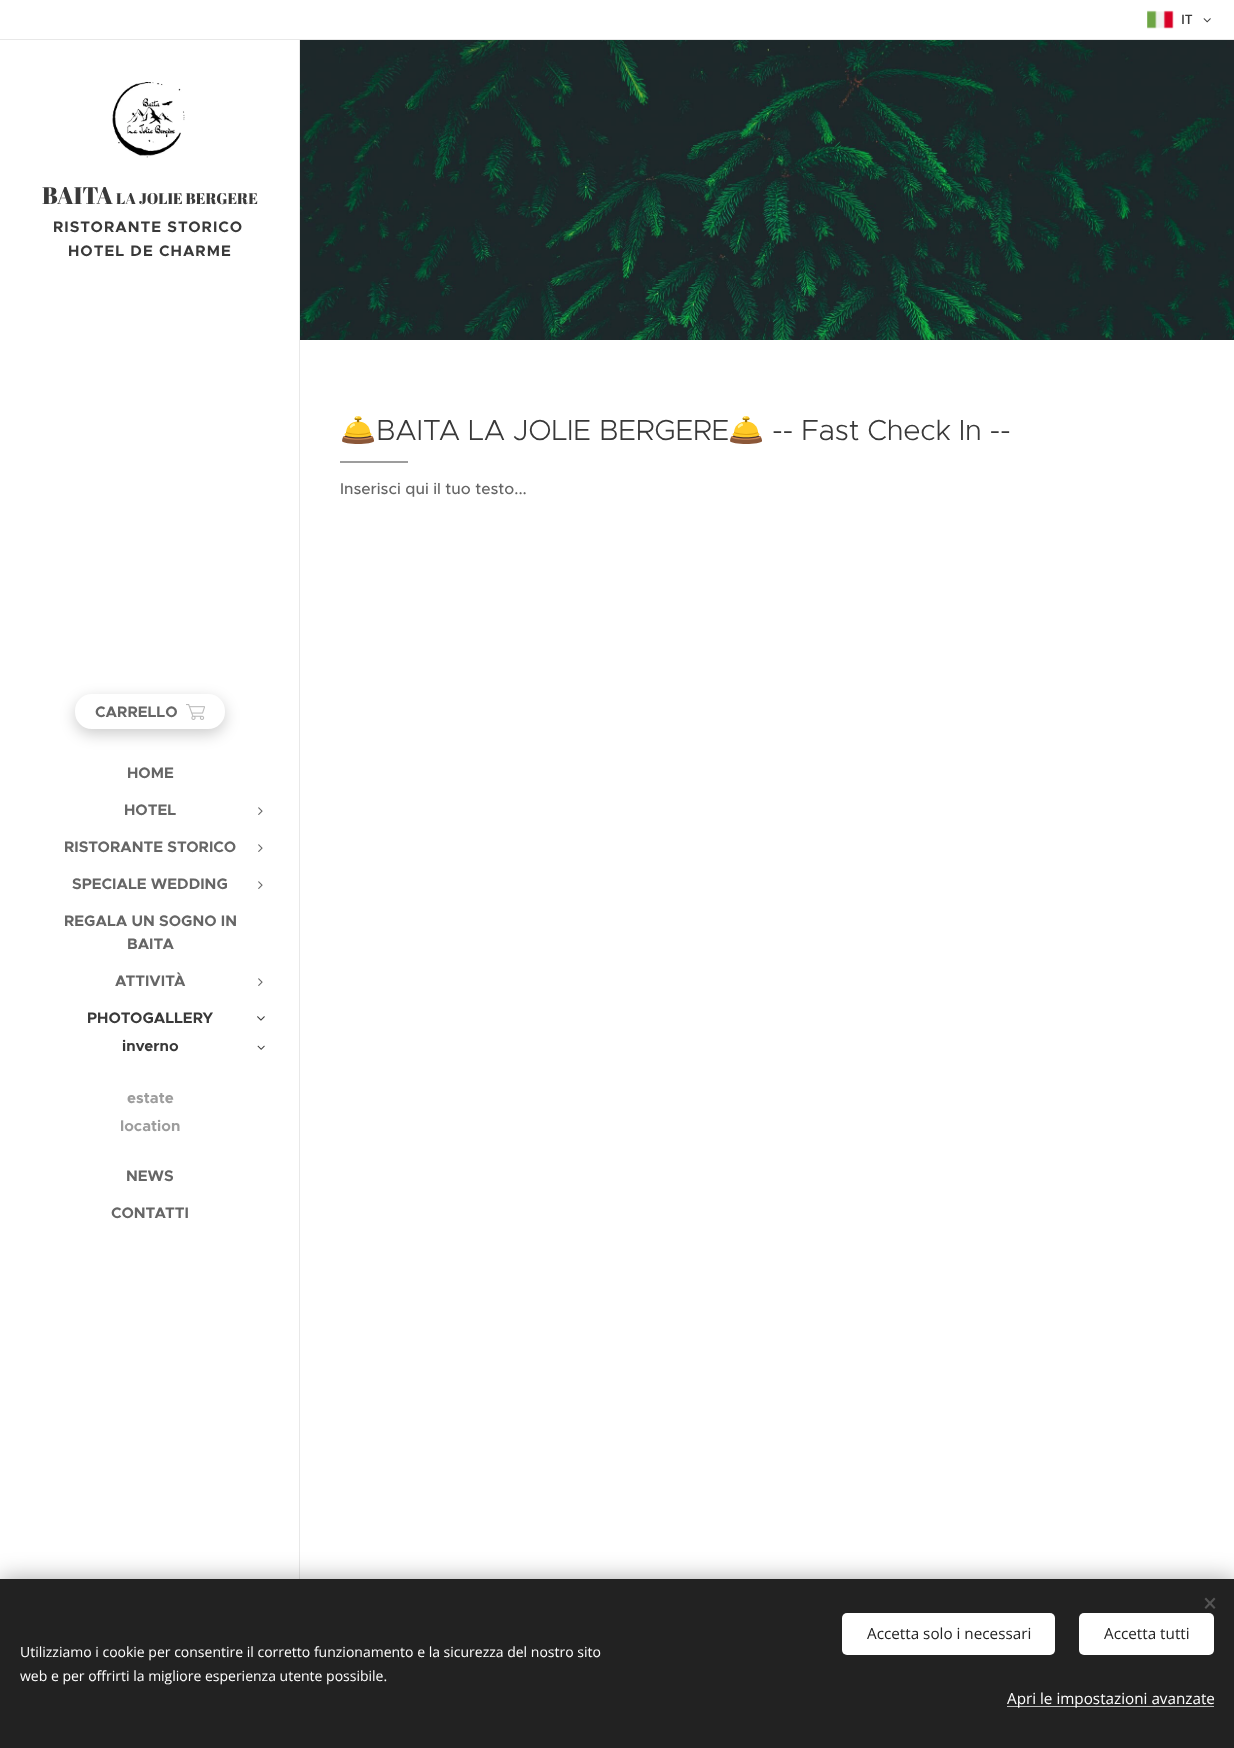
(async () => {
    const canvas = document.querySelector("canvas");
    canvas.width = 1234;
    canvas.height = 1748;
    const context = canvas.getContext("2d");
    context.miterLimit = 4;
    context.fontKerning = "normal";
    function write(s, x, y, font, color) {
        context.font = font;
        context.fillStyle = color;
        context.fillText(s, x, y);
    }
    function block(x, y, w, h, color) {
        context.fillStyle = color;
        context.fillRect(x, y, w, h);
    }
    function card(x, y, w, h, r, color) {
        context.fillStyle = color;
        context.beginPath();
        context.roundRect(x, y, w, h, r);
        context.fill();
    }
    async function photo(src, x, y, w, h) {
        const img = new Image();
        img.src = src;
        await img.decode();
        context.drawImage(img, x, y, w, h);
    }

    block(0, 0, 1234, 1748, "rgb(255, 255, 255)");
    await photo("media/1.png", 1147, 10, 27, 19);
    write("IT", 1181, 24, "600 13px Open Sans", "rgb(57, 57, 57)");
    await photo("media/2.png", 1203, 18, 8, 5);
    block(0, 39, 1234, 1, "rgb(232, 232, 232)");
    await photo("media/3.png", 112, 82, 73, 76);
    write("BAITA", 42, 204, "24px Abril Fatface", "rgb(57, 57, 57)");
    write("LA JOLIE BERGERE", 116, 204, "15.5px Abril Fatface", "rgb(57, 57, 57)");
    context.letterSpacing = "1px";
    write("RISTORANTE STORICO", 53, 232, "bold 15.25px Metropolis", "rgb(57, 57, 57)");
    write("HOTEL DE CHARME", 68, 256, "bold 15.25px Metropolis", "rgb(57, 57, 57)");
    context.save();
    context.beginPath();
    context.moveTo(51, 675);
    context.lineTo(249, 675);
    context.lineTo(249, 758);
    context.lineTo(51, 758);
    context.closePath();
    context.moveTo(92, 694);
    context.lineTo(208, 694);
    context.bezierCurveTo(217.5, 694, 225, 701.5, 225, 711);
    context.lineTo(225, 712);
    context.bezierCurveTo(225, 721.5, 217.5, 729, 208, 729);
    context.lineTo(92, 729);
    context.bezierCurveTo(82.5, 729, 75, 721.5, 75, 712);
    context.lineTo(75, 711);
    context.bezierCurveTo(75, 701.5, 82.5, 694, 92, 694);
    context.closePath();
    context.clip("evenodd");
    context.fillStyle = "rgba(0, 0, 0, 0.2)";
    context.filter = "blur(7.5px)";
    context.beginPath();
    context.roundRect(75, 699, 150, 35, 17);
    context.fill();
    context.filter = "none";
    context.restore();
    context.letterSpacing = "0px";
    write("CARRELLO", 95, 717, "bold 15.25px Metropolis", "rgb(102, 102, 102)");
    await photo("media/4.png", 186, 704, 19, 16);
    write("HOME", 127, 778, "bold 15.25px Metropolis", "rgb(102, 102, 102)");
    write("HOTEL", 124, 815, "bold 15.25px Metropolis", "rgb(102, 102, 102)");
    await photo("media/5.png", 258, 807, 5, 8);
    write("RISTORANTE STORICO", 64, 852, "bold 15.25px Metropolis", "rgb(102, 102, 102)");
    await photo("media/5.png", 258, 844, 5, 8);
    write("SPECIALE WEDDING", 72, 889, "bold 15.25px Metropolis", "rgb(102, 102, 102)");
    await photo("media/5.png", 258, 881, 5, 8);
    write("REGALA UN SOGNO IN", 64, 926, "bold 15.25px Metropolis", "rgb(102, 102, 102)");
    write("BAITA", 127, 949, "bold 15.25px Metropolis", "rgb(102, 102, 102)");
    write("ATTIVITÀ", 115, 986, "bold 15.25px Metropolis", "rgb(102, 102, 102)");
    await photo("media/5.png", 258, 978, 5, 8);
    write("PHOTOGALLERY", 87, 1023, "bold 15.25px Metropolis", "rgb(57, 57, 57)");
    await photo("media/6.png", 257, 1016, 8, 5);
    write("inverno", 122, 1051, "bold 15.25px Metropolis", "rgb(57, 57, 57)");
    await photo("media/7.png", 257, 1045, 8, 5);
    write("estate", 127, 1103, "bold 15.25px Metropolis", "rgb(157, 157, 157)");
    write("location", 120, 1131, "bold 15.25px Metropolis", "rgb(157, 157, 157)");
    write("NEWS", 126, 1181, "bold 15.25px Metropolis", "rgb(102, 102, 102)");
    write("CONTATTI", 111, 1218, "bold 15.25px Metropolis", "rgb(102, 102, 102)");
    block(299, 40, 1, 1539, "rgb(232, 232, 232)");
    await photo("media/8.png", 300, 40, 934, 300);
    context.letterSpacing = "-0.25px";
    write("🛎", 340, 440, "29px Noto Color Emoji", "rgb(57, 57, 57)");
    write("BAITA LA JOLIE BERGERE", 376, 440, "300 29px Metropolis", "rgb(57, 57, 57)");
    write("🛎", 728, 440, "29px Noto Color Emoji", "rgb(57, 57, 57)");
    write("-- Fast Check In --", 772, 440, "300 29px Metropolis", "rgb(57, 57, 57)");
    block(340, 461, 68, 2, "rgb(157, 157, 157)");
    context.letterSpacing = "0px";
    write("Inserisci qui il tuo testo...", 340, 494, "500 15.75px Metropolis", "rgb(102, 102, 102)");
    context.fillStyle = "rgba(0, 0, 0, 0.33)";
    context.filter = "blur(12.5px)";
    context.beginPath();
    context.rect(0, 1579, 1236, 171);
    context.fill();
    context.filter = "none";
    block(0, 1579, 1234, 169, "rgb(34, 34, 34)");
    context.fillStyle = "rgb(85, 85, 85)";
    context.beginPath();
    context.moveTo(1204.5, 1607.5);
    context.lineTo(1214, 1597.5);
    context.lineTo(1215.5, 1599);
    context.lineTo(1206, 1609);
    context.closePath();
    context.fill();
    context.beginPath();
    context.moveTo(1206, 1597.5);
    context.lineTo(1215.5, 1607.5);
    context.lineTo(1214, 1609);
    context.lineTo(1204.5, 1599);
    context.closePath();
    context.fill();
    write("Utilizziamo i cookie per consentire il corretto funzionamento e la sicurezza del nostro sito", 20, 1657, "14px Open Sans", "rgb(255, 255, 255)");
    write("web e per offrirti la migliore esperienza utente possibile.", 20, 1681, "14px Open Sans", "rgb(255, 255, 255)");
    card(842, 1613, 213, 42, 5, "rgb(255, 255, 255)");
    write("Accetta solo i necessari", 867, 1639, "15.25px Open Sans", "rgb(34, 34, 34)");
    card(1079, 1613, 135, 42, 5, "rgb(255, 255, 255)");
    write("Accetta tutti", 1104, 1639, "15.25px Open Sans", "rgb(34, 34, 34)");
    block(1007, 1706, 207, 1, "rgb(189, 189, 189)");
    write("Apri le impostazioni avanzate", 1007, 1704, "15.25px Open Sans", "rgb(255, 255, 255)");
})();
